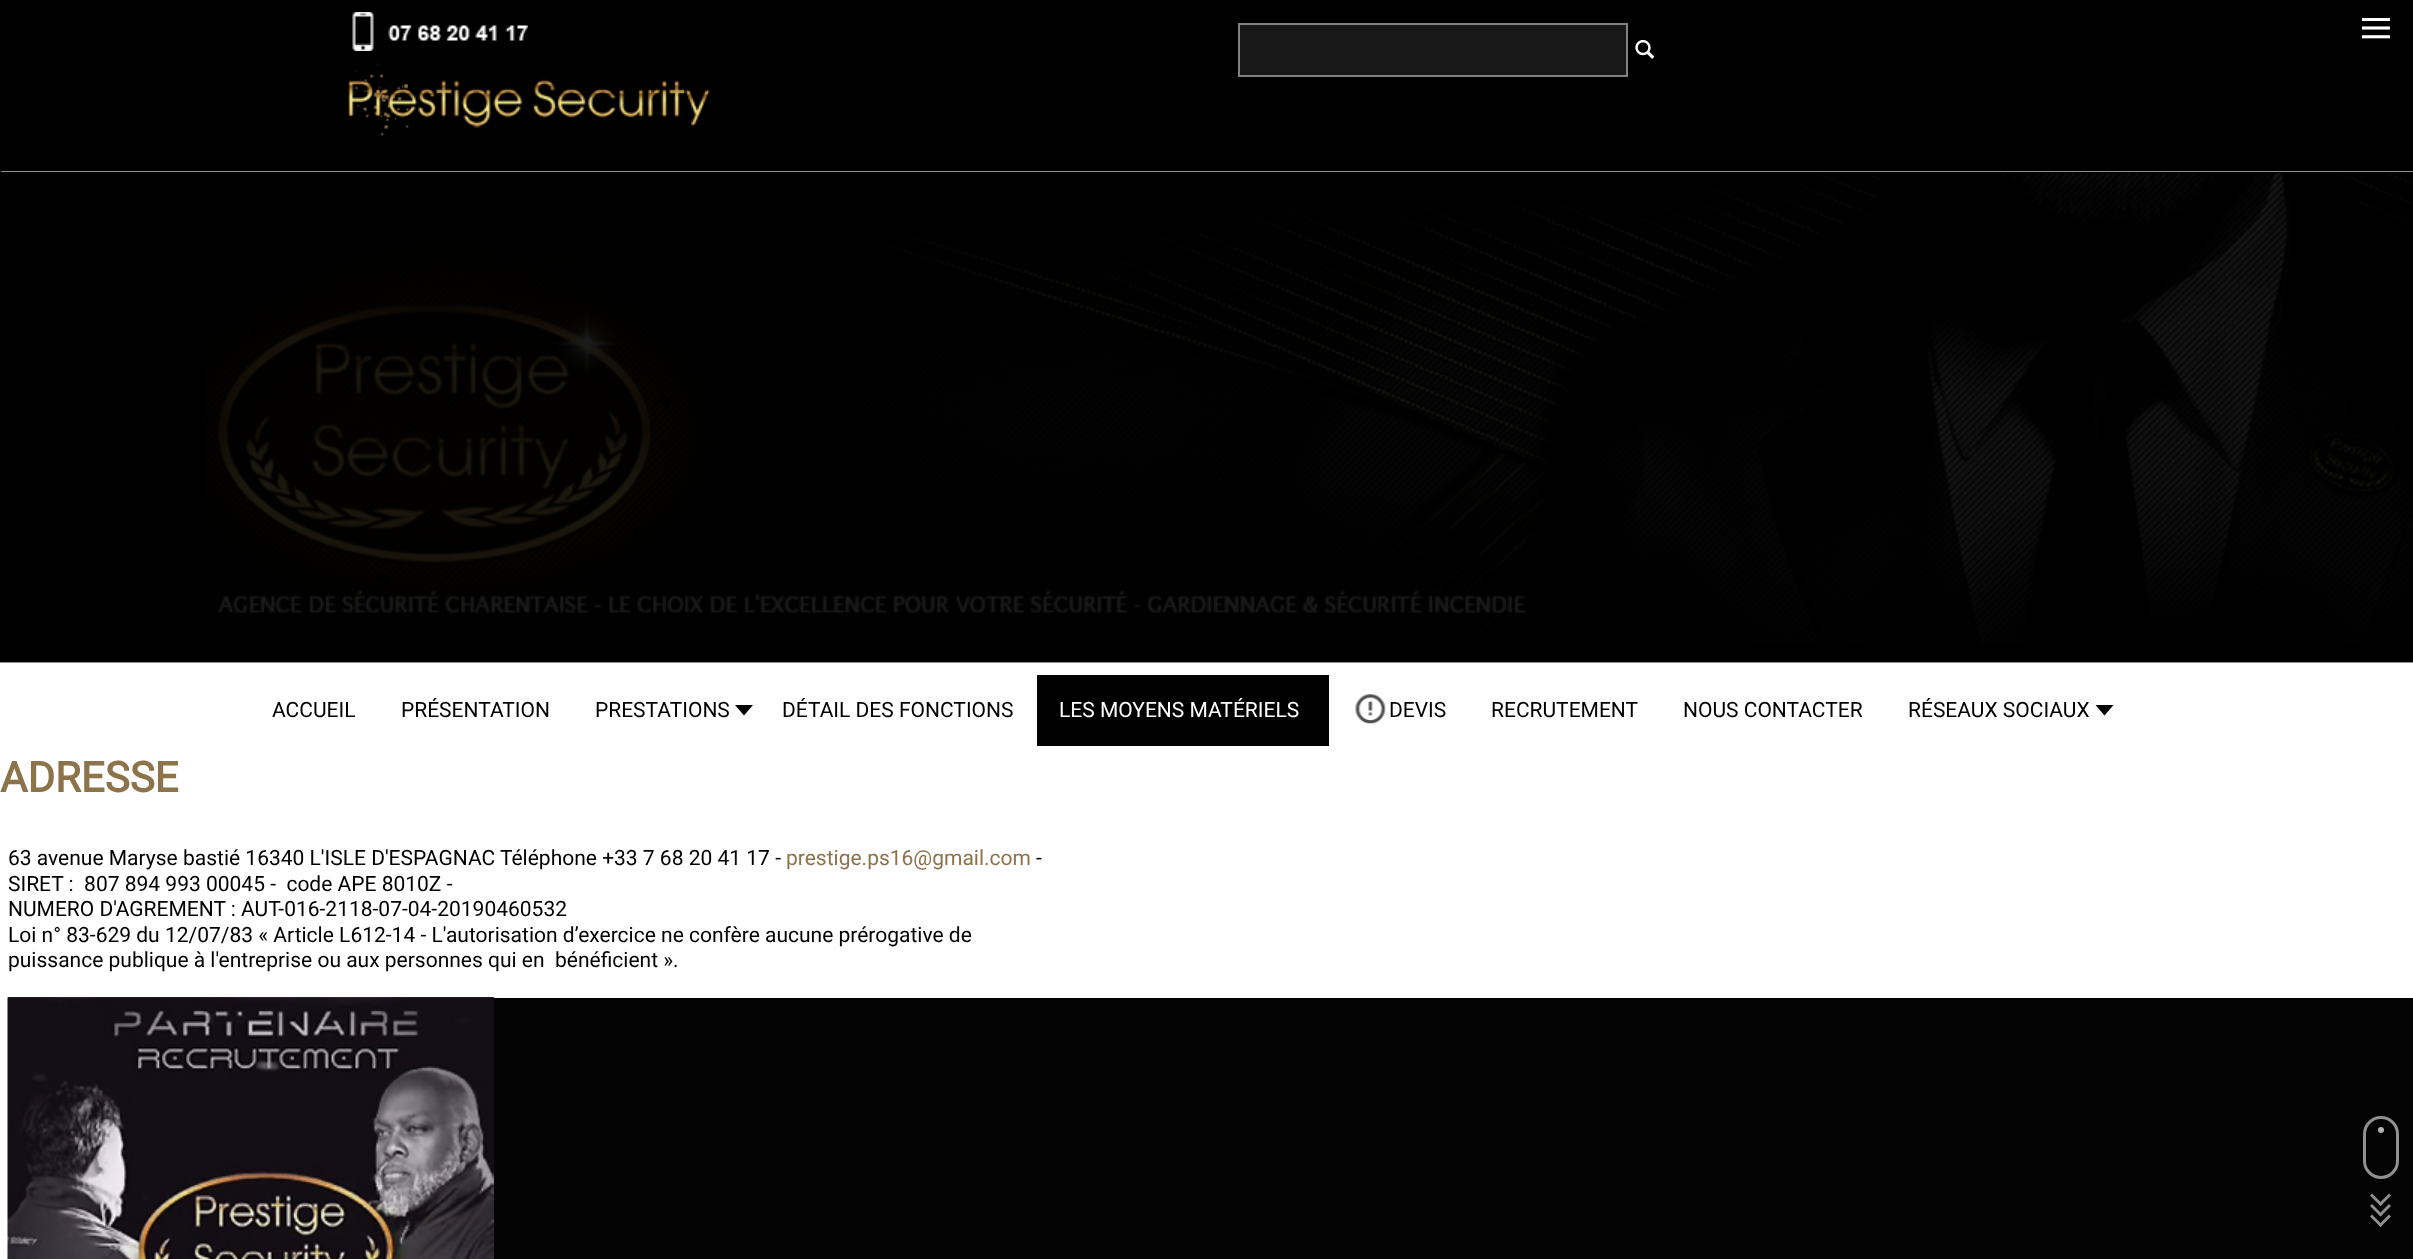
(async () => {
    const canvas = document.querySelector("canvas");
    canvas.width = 2413;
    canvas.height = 1259;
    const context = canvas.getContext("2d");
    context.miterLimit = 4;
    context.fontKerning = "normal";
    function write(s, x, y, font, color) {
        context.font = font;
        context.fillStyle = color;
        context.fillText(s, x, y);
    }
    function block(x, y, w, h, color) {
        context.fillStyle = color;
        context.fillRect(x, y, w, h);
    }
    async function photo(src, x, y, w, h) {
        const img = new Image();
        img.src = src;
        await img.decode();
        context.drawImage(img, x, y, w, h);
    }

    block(0, 0, 2413, 1259, "rgb(255, 255, 255)");
    block(0, 0, 2413, 662, "rgb(0, 0, 0)");
    context.fillStyle = "rgb(145, 145, 145)";
    context.beginPath();
    context.moveTo(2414, 172);
    context.lineTo(0, 172);
    context.lineTo(2, 171);
    context.lineTo(2412, 171);
    context.closePath();
    context.fill();
    await photo("media/2.png", 354, 74, 55, 63);
    await photo("media/1.png", 348, 63, 362, 65);
    await photo("media/3.png", 352, 12, 176, 39);
    context.fillStyle = "rgb(24, 24, 24)";
    context.beginPath();
    context.rect(1239, 24, 388, 52);
    context.fill();
    context.strokeStyle = "rgb(130, 130, 130)";
    context.lineWidth = 2;
    context.stroke();
    await photo("media/4.png", 1635, 40, 20, 19);
    write("≡", 2359, 48, "60px Liberation Serif", "rgb(255, 255, 255)");
    block(0, 662, 2413, 1, "rgb(145, 145, 145)");
    await photo("media/5.png", 203, 173, 2210, 472);
    write("ACCUEIL", 272, 717, "21px Roboto", "rgb(0, 0, 0)");
    write("PRÉSENTATION", 401, 717, "21px Roboto", "rgb(0, 0, 0)");
    write("PRESTATIONS", 595, 717, "21px Roboto", "rgb(0, 0, 0)");
    context.beginPath();
    context.moveTo(735, 705);
    context.lineTo(753, 705);
    context.lineTo(744, 715.5);
    context.closePath();
    context.fill();
    write("DÉTAIL DES FONCTIONS", 782, 717, "21px Roboto", "rgb(0, 0, 0)");
    block(1037, 675, 292, 71, "rgb(0, 0, 0)");
    write("LES MOYENS MATÉRIELS", 1059, 717, "21px Roboto", "rgb(255, 255, 255)");
    await photo("media/6.png", 1355, 694, 31, 30);
    write("DEVIS", 1389, 717, "21px Roboto", "rgb(0, 0, 0)");
    write("RECRUTEMENT", 1491, 717, "21px Roboto", "rgb(0, 0, 0)");
    write("NOUS CONTACTER", 1683, 717, "21px Roboto", "rgb(0, 0, 0)");
    write("RÉSEAUX SOCIAUX", 1908, 717, "21px Roboto", "rgb(0, 0, 0)");
    context.beginPath();
    context.moveTo(2095.5, 705);
    context.lineTo(2113.5, 705);
    context.lineTo(2104.5, 715.5);
    context.closePath();
    context.fill();
    write("ADRESSE", 0, 792, "bold 42px Roboto", "rgb(140, 115, 74)");
    write("63 avenue Maryse bastié 16340 L'ISLE D'ESPAGNAC Téléphone +33 7 68 20 41 17 -", 8, 865, "21px Roboto", "rgb(0, 0, 0)");
    write("prestige.ps16@gmail.com", 786, 865, "21px Roboto", "rgb(140, 115, 74)");
    write("-", 1036, 865, "21px Roboto", "rgb(0, 0, 0)");
    write("SIRET :  807 894 993 00045 -  code APE 8010Z -", 8, 891, "21px Roboto", "rgb(0, 0, 0)");
    write("NUMERO D'AGREMENT : AUT-016-2118-07-04-20190460532", 8, 916, "21px Roboto", "rgb(0, 0, 0)");
    write("Loi n° 83-629 du 12/07/83 « Article L612-14 - L'autorisation d’exercice ne confère aucune prérogative de", 8, 942, "21px Roboto", "rgb(0, 0, 0)");
    write("puissance publique à l'entreprise ou aux personnes qui en  bénéficient ».", 8, 967, "21px Roboto", "rgb(0, 0, 0)");
    block(494, 998, 1919, 261, "rgb(3, 3, 3)");
    await photo("media/7.png", 7, 997, 487, 262);
    await photo("media/8.png", 8, 997, 486, 1);
    await photo("media/9.png", 8, 997, 486, 1);
    await photo("media/10.png", 8, 997, 486, 1);
    await photo("media/11.png", 8, 998, 486, 261);
    context.beginPath();
    context.roundRect(2364.5, 1117.5, 33, 60, 16.5);
    context.strokeStyle = "rgb(144, 144, 144)";
    context.lineWidth = 3;
    context.stroke();
    context.fillStyle = "rgb(179, 179, 179)";
    context.beginPath();
    context.arc(2381, 1130, 3, 0, Math.PI * 2);
    context.fill();
    context.fillStyle = "rgb(144, 144, 144)";
    context.beginPath();
    context.moveTo(2380.5, 1227);
    context.lineTo(2370, 1216.5);
    context.lineTo(2372, 1214.5);
    context.lineTo(2382.5, 1225);
    context.closePath();
    context.fill();
    context.beginPath();
    context.moveTo(2380.5, 1227);
    context.lineTo(2378.5, 1225);
    context.lineTo(2389, 1214.5);
    context.lineTo(2391, 1216.5);
    context.closePath();
    context.fill();
    context.beginPath();
    context.moveTo(2380.5, 1216.5);
    context.lineTo(2370, 1206);
    context.lineTo(2372, 1204);
    context.lineTo(2382.5, 1214.5);
    context.closePath();
    context.fill();
    context.beginPath();
    context.moveTo(2380.5, 1216.5);
    context.lineTo(2378.5, 1214.5);
    context.lineTo(2389, 1204);
    context.lineTo(2391, 1206);
    context.closePath();
    context.fill();
    context.beginPath();
    context.moveTo(2380.5, 1206);
    context.lineTo(2370, 1195.5);
    context.lineTo(2372, 1193.5);
    context.lineTo(2382.5, 1204);
    context.closePath();
    context.fill();
    context.beginPath();
    context.moveTo(2380.5, 1206);
    context.lineTo(2378.5, 1204);
    context.lineTo(2389, 1193.5);
    context.lineTo(2391, 1195.5);
    context.closePath();
    context.fill();
})();
